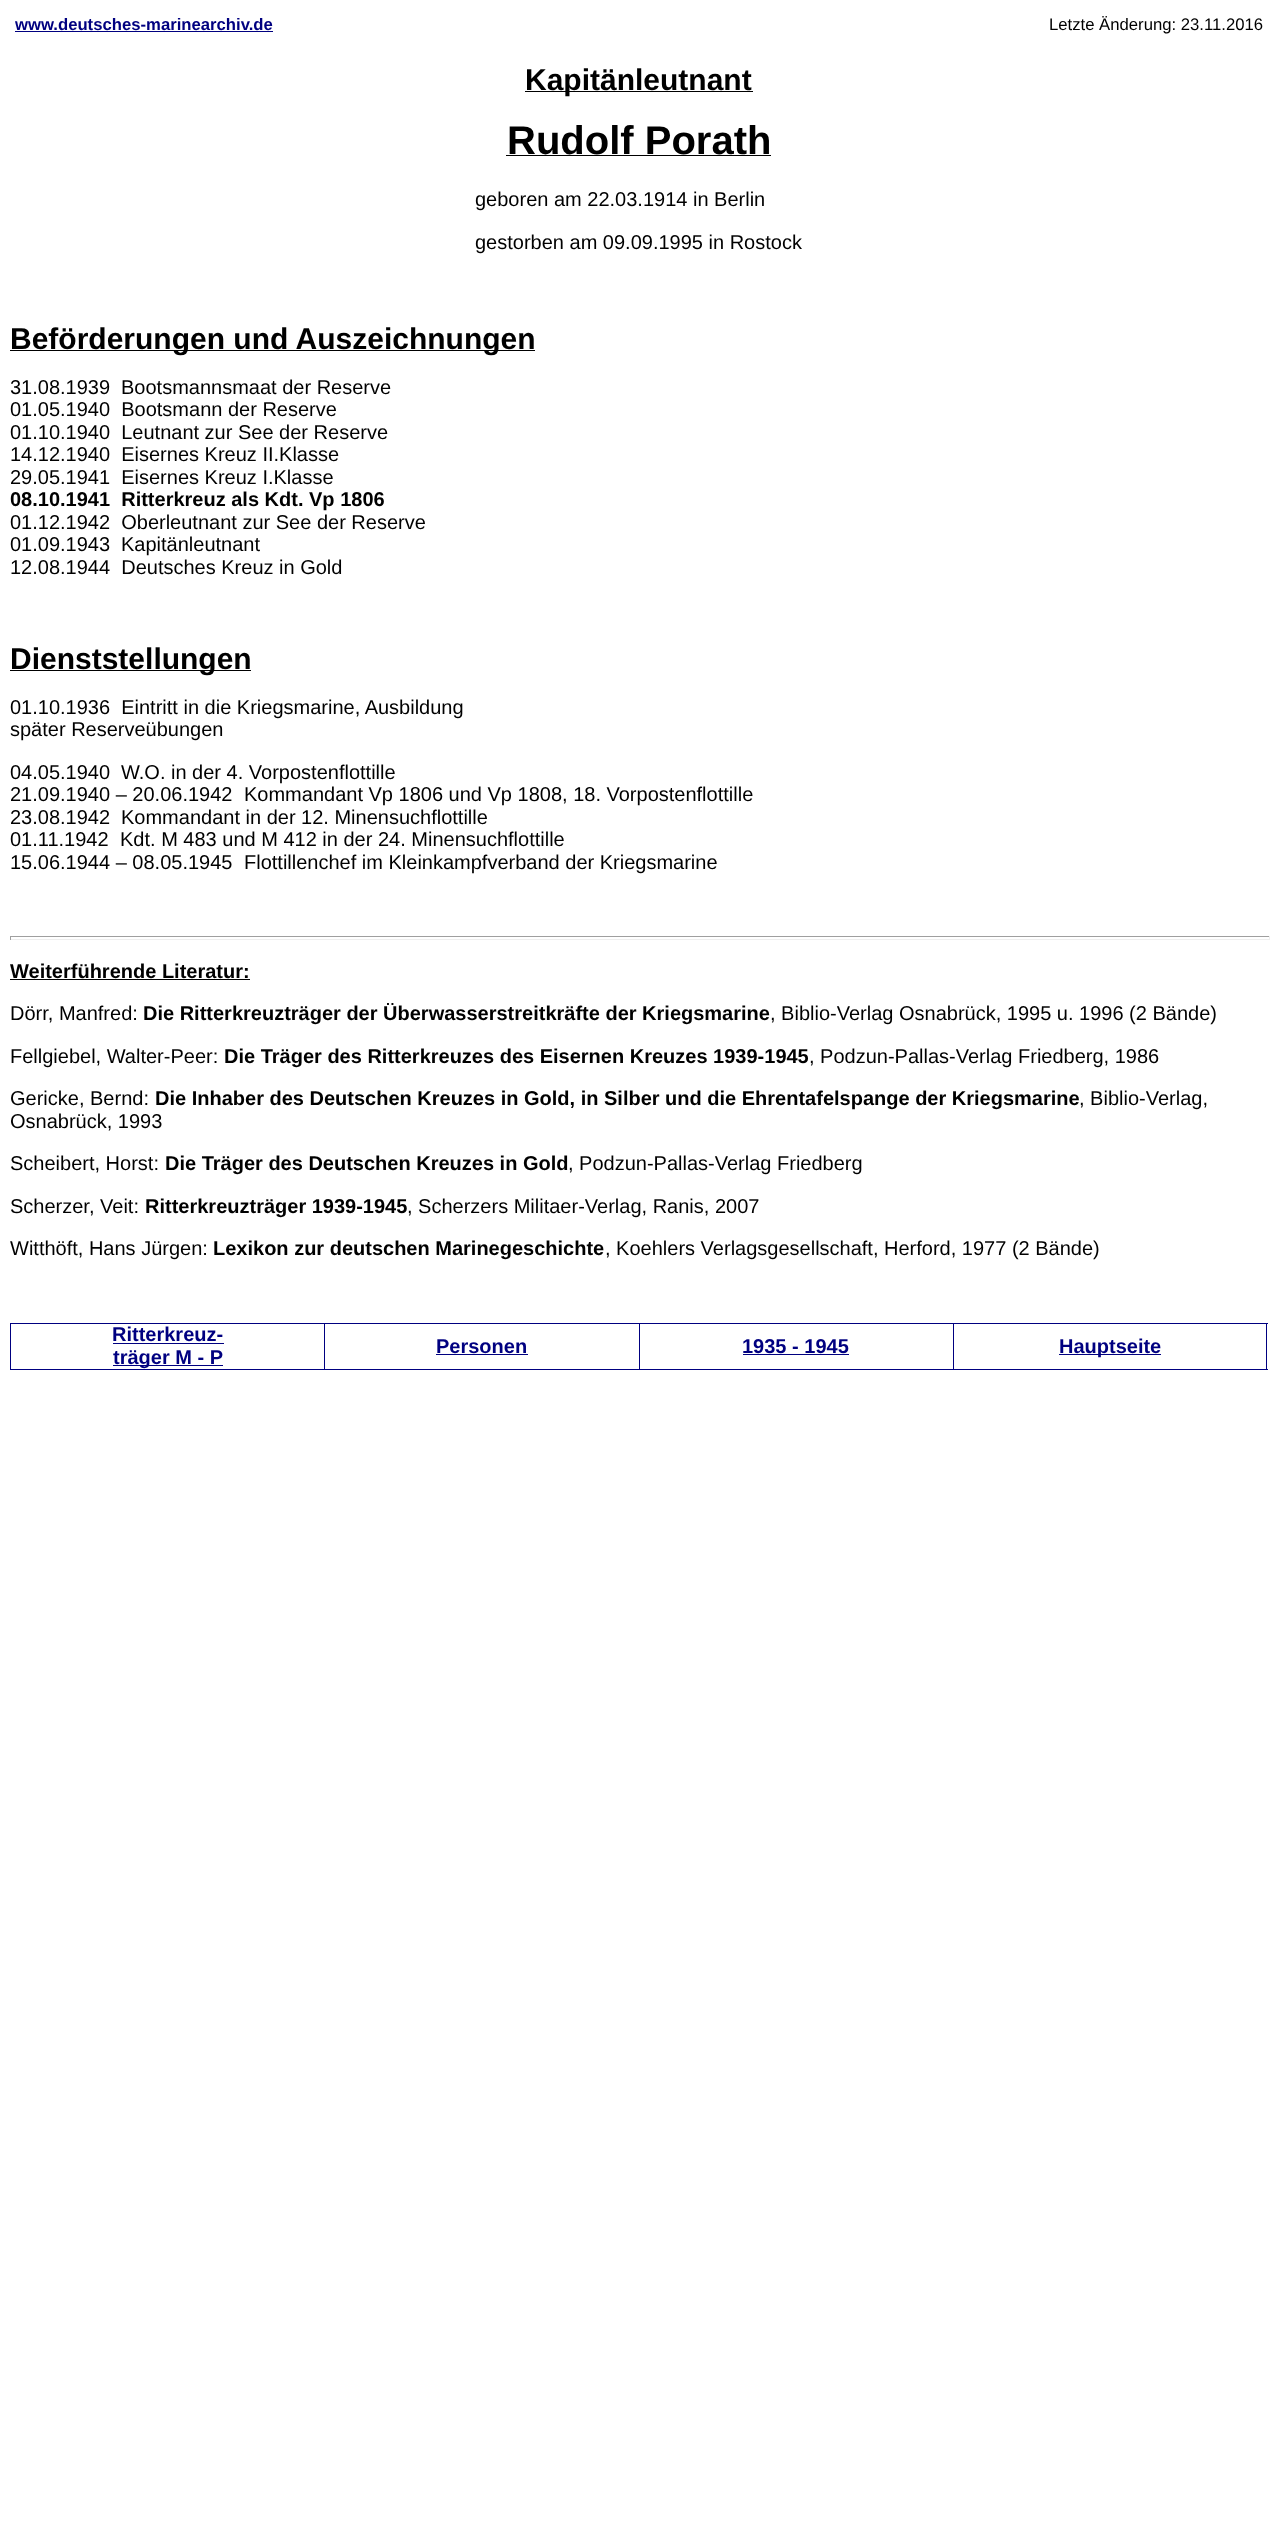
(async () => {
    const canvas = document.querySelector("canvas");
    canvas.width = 1277;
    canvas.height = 2544;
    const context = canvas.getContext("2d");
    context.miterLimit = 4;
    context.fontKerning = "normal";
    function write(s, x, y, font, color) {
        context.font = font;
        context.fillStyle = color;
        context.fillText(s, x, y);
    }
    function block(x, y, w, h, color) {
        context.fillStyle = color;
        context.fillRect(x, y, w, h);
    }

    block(0, 0, 1277, 2544, "rgb(255, 255, 255)");
    write("www.deutsches-marinearchiv.de", 15, 30, "bold 16.7px Liberation Sans", "rgb(0, 0, 128)");
    block(15, 31, 258, 1, "rgb(0, 0, 128)");
    write("Letzte Änderung: 23.11.2016", 1049, 30, "16.7px Liberation Sans", "rgb(0, 0, 0)");
    block(525, 91, 228, 1, "rgb(0, 0, 0)");
    write("Kapitänleutnant", 525, 90, "bold 30px Liberation Sans", "rgb(0, 0, 0)");
    write("Rudolf Porath", 507, 154, "bold 40px Liberation Sans", "rgb(0, 0, 0)");
    block(506, 155, 265, 1, "rgb(0, 0, 0)");
    write("geboren am 22.03.1914 in Berlin", 475, 206, "20px Liberation Sans", "rgb(0, 0, 0)");
    write("gestorben am 09.09.1995 in Rostock", 475, 249, "20px Liberation Sans", "rgb(0, 0, 0)");
    block(10, 350, 525, 1, "rgb(0, 0, 0)");
    write("Beförderungen und Auszeichnungen", 10, 349, "bold 30px Liberation Sans", "rgb(0, 0, 0)");
    write("31.08.1939", 10, 394, "20px Liberation Sans", "rgb(0, 0, 0)");
    write("Bootsmannsmaat der Reserve", 121, 394, "20px Liberation Sans", "rgb(0, 0, 0)");
    write("01.05.1940  Bootsmann der Reserve", 10, 416, "20px Liberation Sans", "rgb(0, 0, 0)");
    write("01.10.1940  Leutnant zur See der Reserve", 10, 439, "20px Liberation Sans", "rgb(0, 0, 0)");
    write("14.12.1940  Eisernes Kreuz II.Klasse", 10, 461, "20px Liberation Sans", "rgb(0, 0, 0)");
    write("29.05.1941  Eisernes Kreuz I.Klasse", 10, 484, "20px Liberation Sans", "rgb(0, 0, 0)");
    write("08.10.1941  Ritterkreuz als Kdt. Vp 1806", 10, 506, "bold 20px Liberation Sans", "rgb(0, 0, 0)");
    write("01.12.1942  Oberleutnant zur See der Reserve", 10, 529, "20px Liberation Sans", "rgb(0, 0, 0)");
    write("01.09.1943", 10, 551, "20px Liberation Sans", "rgb(0, 0, 0)");
    write("Kapitänleutnant", 121, 551, "20px Liberation Sans", "rgb(0, 0, 0)");
    write("12.08.1944  Deutsches Kreuz in Gold", 10, 574, "20px Liberation Sans", "rgb(0, 0, 0)");
    block(10, 670, 241, 1, "rgb(0, 0, 0)");
    write("Dienststellungen", 10, 669, "bold 30px Liberation Sans", "rgb(0, 0, 0)");
    write("01.10.1936  Eintritt in die Kriegsmarine, Ausbildung", 10, 714, "20px Liberation Sans", "rgb(0, 0, 0)");
    write("später Reserveübungen", 10, 736, "20px Liberation Sans", "rgb(0, 0, 0)");
    write("04.05.1940", 10, 779, "20px Liberation Sans", "rgb(0, 0, 0)");
    write("W.O. in der 4. Vorpostenflottille", 121, 779, "20px Liberation Sans", "rgb(0, 0, 0)");
    write("21.09.1940 – 20.06.1942", 10, 801, "20px Liberation Sans", "rgb(0, 0, 0)");
    write("Kommandant Vp 1806 und Vp 1808, 18. Vorpostenflottille", 244, 801, "20px Liberation Sans", "rgb(0, 0, 0)");
    write("23.08.1942", 10, 824, "20px Liberation Sans", "rgb(0, 0, 0)");
    write("Kommandant in der 12. Minensuchflottille", 121, 824, "20px Liberation Sans", "rgb(0, 0, 0)");
    write("01.11.1942", 10, 846, "20px Liberation Sans", "rgb(0, 0, 0)");
    write("Kdt. M 483 und M 412 in der 24. Minensuchflottille", 120, 846, "20px Liberation Sans", "rgb(0, 0, 0)");
    write("15.06.1944 – 08.05.1945", 10, 869, "20px Liberation Sans", "rgb(0, 0, 0)");
    write("Flottillenchef im Kleinkampfverband der Kriegsmarine", 244, 869, "20px Liberation Sans", "rgb(0, 0, 0)");
    block(10, 936, 1260, 1, "rgb(159, 159, 159)");
    block(1269, 936, 1, 4, "rgb(238, 238, 238)");
    block(10, 939, 1260, 1, "rgb(238, 238, 238)");
    block(10, 936, 1, 4, "rgb(159, 159, 159)");
    write("Weiterführende Literatur:", 10, 978, "bold 20px Liberation Sans", "rgb(0, 0, 0)");
    block(10, 979, 240, 1, "rgb(0, 0, 0)");
    write("Dörr, Manfred:", 10, 1020, "20px Liberation Sans", "rgb(0, 0, 0)");
    write("Die Ritterkreuzträger der Überwasserstreitkräfte der Kriegsmarine", 143, 1020, "bold 20px Liberation Sans", "rgb(0, 0, 0)");
    write(", Biblio-Verlag Osnabrück, 1995 u. 1996 (2 Bände)", 770, 1020, "20px Liberation Sans", "rgb(0, 0, 0)");
    write("Fellgiebel, Walter-Peer:", 10, 1063, "20px Liberation Sans", "rgb(0, 0, 0)");
    write("Die Träger des Ritterkreuzes des Eisernen Kreuzes 1939-1945", 224, 1063, "bold 20px Liberation Sans", "rgb(0, 0, 0)");
    write(", Podzun-Pallas-Verlag Friedberg, 1986", 809, 1063, "20px Liberation Sans", "rgb(0, 0, 0)");
    write("Gericke, Bernd:", 10, 1105, "20px Liberation Sans", "rgb(0, 0, 0)");
    write("Die Inhaber des Deutschen Kreuzes in Gold, in Silber und die Ehrentafelspange der Kriegsmarine", 155, 1105, "bold 20px Liberation Sans", "rgb(0, 0, 0)");
    write(", Biblio-Verlag,", 1079, 1105, "20px Liberation Sans", "rgb(0, 0, 0)");
    write("Osnabrück, 1993", 10, 1128, "20px Liberation Sans", "rgb(0, 0, 0)");
    write("Scheibert, Horst:", 10, 1170, "20px Liberation Sans", "rgb(0, 0, 0)");
    write("Die Träger des Deutschen Kreuzes in Gold", 165, 1170, "bold 20px Liberation Sans", "rgb(0, 0, 0)");
    write(", Podzun-Pallas-Verlag Friedberg", 568, 1170, "20px Liberation Sans", "rgb(0, 0, 0)");
    write("Scherzer, Veit:", 10, 1213, "20px Liberation Sans", "rgb(0, 0, 0)");
    write("Ritterkreuzträger 1939-1945", 145, 1213, "bold 20px Liberation Sans", "rgb(0, 0, 0)");
    write(", Scherzers Militaer-Verlag, Ranis, 2007", 407, 1213, "20px Liberation Sans", "rgb(0, 0, 0)");
    write("Witthöft, Hans Jürgen:", 10, 1255, "20px Liberation Sans", "rgb(0, 0, 0)");
    write("Lexikon zur deutschen Marinegeschichte", 213, 1255, "bold 20px Liberation Sans", "rgb(0, 0, 0)");
    write(", Koehlers Verlagsgesellschaft, Herford, 1977 (2 Bände)", 605, 1255, "20px Liberation Sans", "rgb(0, 0, 0)");
    block(10, 1323, 1258, 1, "rgb(0, 0, 128)");
    block(1266, 1323, 1, 47, "rgb(0, 0, 128)");
    block(953, 1369, 315, 1, "rgb(0, 0, 128)");
    block(953, 1323, 1, 47, "rgb(0, 0, 128)");
    block(639, 1369, 315, 1, "rgb(0, 0, 128)");
    block(639, 1323, 1, 47, "rgb(0, 0, 128)");
    block(324, 1369, 316, 1, "rgb(0, 0, 128)");
    block(324, 1323, 1, 47, "rgb(0, 0, 128)");
    block(10, 1369, 315, 1, "rgb(0, 0, 128)");
    block(10, 1323, 1, 47, "rgb(0, 0, 128)");
    write("Ritterkreuz-", 112, 1341, "bold 20px Liberation Sans", "rgb(0, 0, 128)");
    block(113, 1343, 111, 1, "rgb(0, 0, 128)");
    block(113, 1365, 56, 1, "rgb(0, 0, 128)");
    write("träger M - P", 113, 1364, "bold 20px Liberation Sans", "rgb(0, 0, 128)");
    block(169, 1365, 54, 1, "rgb(0, 0, 128)");
    write("Personen", 436, 1353, "bold 20px Liberation Sans", "rgb(0, 0, 128)");
    block(436, 1354, 92, 1, "rgb(0, 0, 128)");
    write("1935 - 1945", 742, 1353, "bold 20px Liberation Sans", "rgb(0, 0, 128)");
    block(743, 1354, 106, 1, "rgb(0, 0, 128)");
    block(1059, 1354, 102, 1, "rgb(0, 0, 128)");
    write("Hauptseite", 1059, 1353, "bold 20px Liberation Sans", "rgb(0, 0, 128)");
})();
